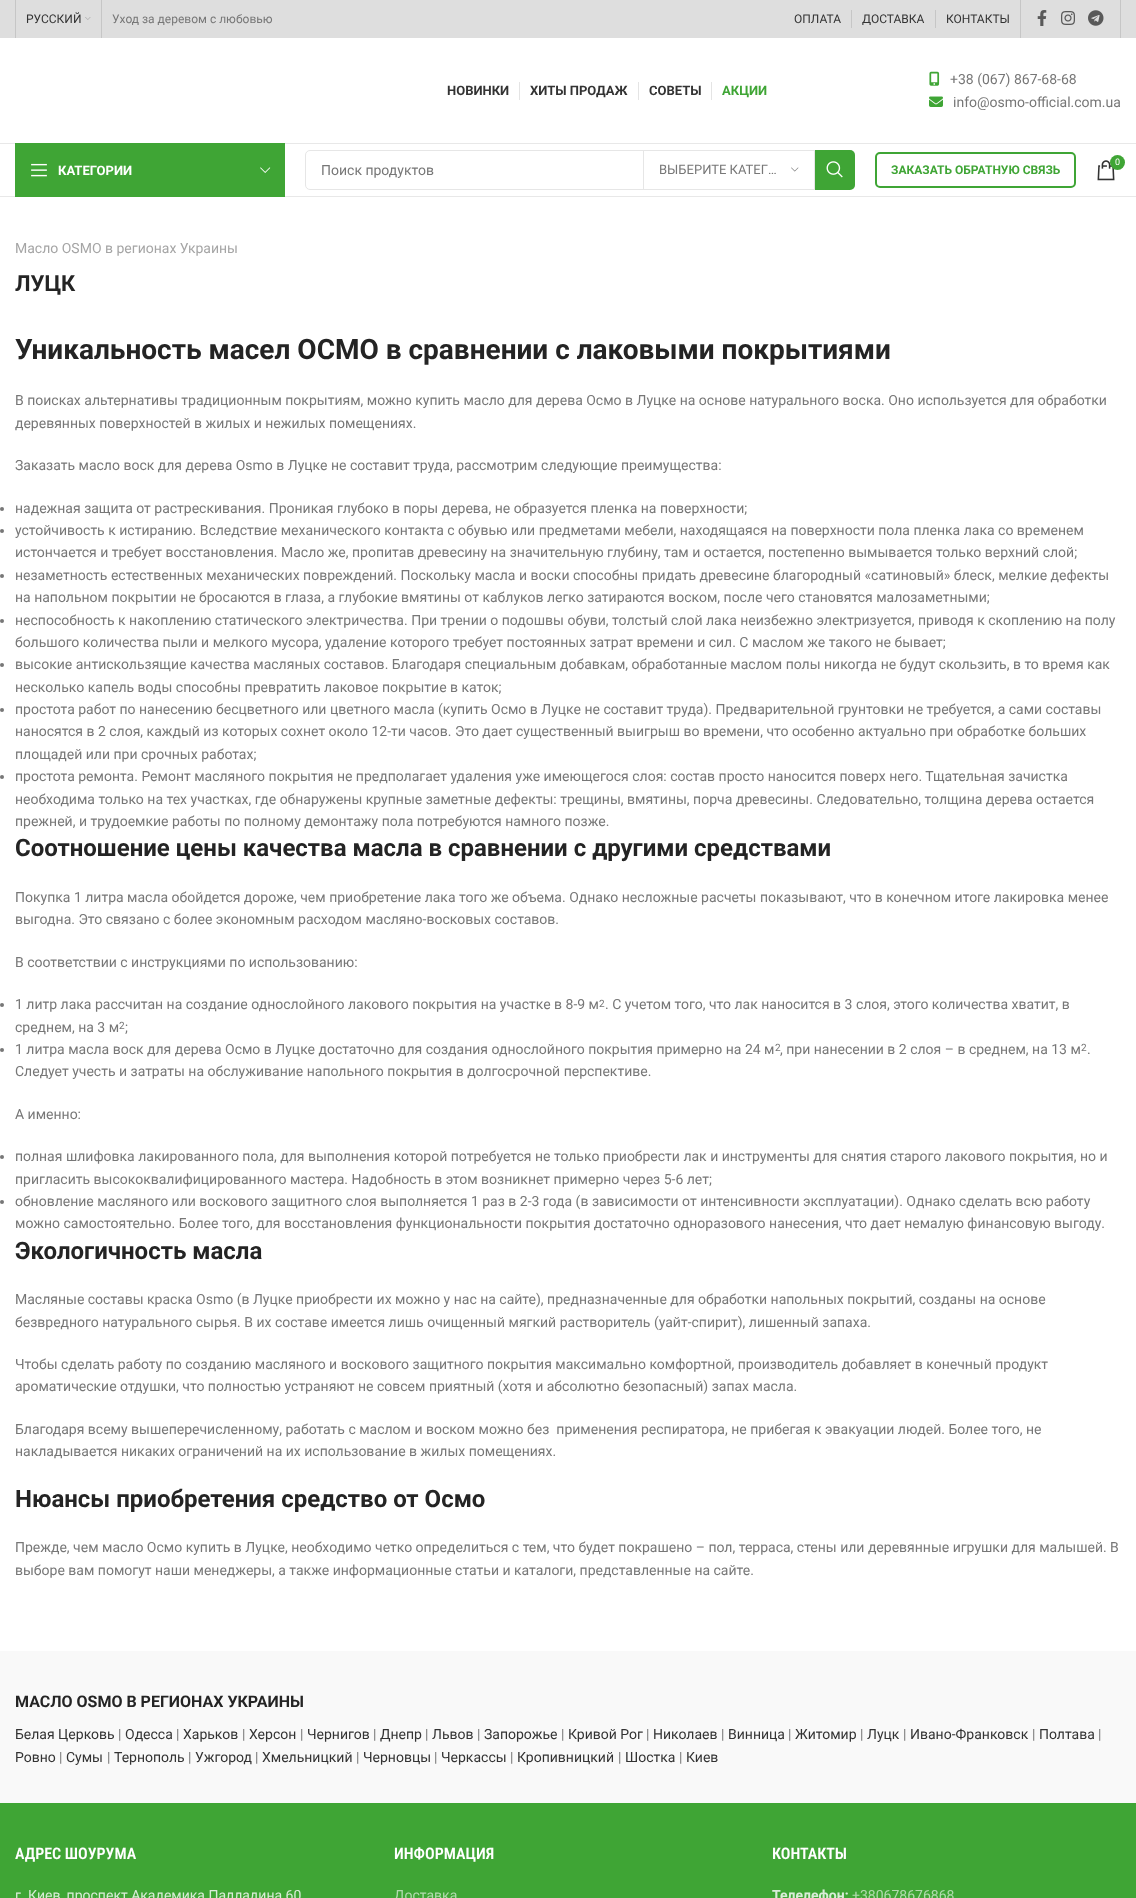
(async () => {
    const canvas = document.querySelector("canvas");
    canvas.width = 1136;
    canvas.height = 1898;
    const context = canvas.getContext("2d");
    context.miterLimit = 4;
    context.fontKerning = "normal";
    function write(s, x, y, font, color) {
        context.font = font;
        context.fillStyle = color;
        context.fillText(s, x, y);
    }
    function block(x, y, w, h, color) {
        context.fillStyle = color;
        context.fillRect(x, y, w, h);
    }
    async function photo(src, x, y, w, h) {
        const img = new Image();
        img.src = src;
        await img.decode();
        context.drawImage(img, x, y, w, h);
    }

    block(0, 0, 1136, 1898, "rgb(255, 255, 255)");
    block(0, 0, 1136, 38, "rgb(222, 222, 222)");
    block(15, 0, 1, 38, "rgb(198, 198, 198)");
    write("РУССКИЙ", 26, 23, "12px Roboto", "rgb(51, 51, 51)");
    await photo("media/1.png", 85, 17, 6, 3);
    block(101, 0, 1, 38, "rgb(198, 198, 198)");
    write("Уход за деревом с любовью", 112, 23, "12px Roboto", "rgb(119, 119, 119)");
    write("ОПЛАТА", 794, 23, "12px Roboto", "rgb(51, 51, 51)");
    block(851, 10, 1, 18, "rgb(198, 198, 198)");
    write("ДОСТАВКА", 862, 23, "12px Roboto", "rgb(51, 51, 51)");
    block(935, 10, 1, 18, "rgb(198, 198, 198)");
    write("КОНТАКТЫ", 946, 23, "12px Roboto", "rgb(51, 51, 51)");
    block(1020, 0, 1, 38, "rgb(198, 198, 198)");
    await photo("media/2.png", 1037, 10, 10, 16);
    await photo("media/3.png", 1061, 11, 14, 14);
    await photo("media/4.png", 1088, 10, 16, 16);
    block(1120, 0, 1, 38, "rgb(198, 198, 198)");
    block(0, 143, 1136, 1, "rgb(232, 232, 232)");
    write("НОВИНКИ", 447, 95, "bold 13px Roboto", "rgb(51, 51, 51)");
    block(519, 82, 1, 18, "rgb(228, 228, 228)");
    write("ХИТЫ ПРОДАЖ", 530, 95, "bold 13px Roboto", "rgb(51, 51, 51)");
    block(638, 82, 1, 18, "rgb(228, 228, 228)");
    write("СОВЕТЫ", 649, 95, "bold 13px Roboto", "rgb(51, 51, 51)");
    block(711, 82, 1, 18, "rgb(228, 228, 228)");
    write("АКЦИИ", 722, 95, "bold 13px Roboto", "rgb(63, 165, 53)");
    await photo("media/5.png", 929, 71, 11, 15);
    write("+38 (067) 867-68-68", 950, 84, "14px Roboto", "rgb(119, 119, 119)");
    await photo("media/6.png", 929, 96, 14, 11);
    write("info@osmo-official.com.ua", 953, 107, "14px Roboto", "rgb(119, 119, 119)");
    block(0, 196, 1136, 1, "rgb(232, 232, 232)");
    await photo("media/7.png", 1097, 160, 18, 21);
    context.fillStyle = "rgb(63, 165, 53)";
    context.beginPath();
    context.arc(1117.5, 162.5, 7.5, 0, Math.PI * 2);
    context.fill();
    write("0", 1115, 165, "9px Roboto", "rgb(255, 255, 255)");
    block(15, 143, 270, 54, "rgb(63, 165, 53)");
    await photo("media/8.png", 31, 163, 16, 14);
    write("КАТЕГОРИИ", 58, 175, "bold 13px Roboto", "rgb(255, 255, 255)");
    await photo("media/9.png", 260, 167, 11, 6);
    context.beginPath();
    context.roundRect(305.5, 150.5, 549, 39, 4.5);
    context.strokeStyle = "rgb(230, 230, 230)";
    context.stroke();
    write("Поиск продуктов", 321, 175, "14px Roboto", "rgb(119, 119, 119)");
    block(814, 151, 1, 38, "rgb(230, 230, 230)");
    block(643, 151, 1, 38, "rgb(230, 230, 230)");
    write("ВЫБЕРИТЕ КАТЕГ…", 659, 174, "13px Roboto", "rgb(119, 119, 119)");
    await photo("media/10.png", 791, 167, 8, 5);
    context.fillStyle = "rgb(63, 165, 53)";
    context.beginPath();
    context.roundRect(815, 150, 40, 40, [0, 5, 5, 0]);
    context.fill();
    await photo("media/11.png", 826, 161, 17, 17);
    context.beginPath();
    context.roundRect(876, 153, 199, 34, 4);
    context.strokeStyle = "rgb(63, 165, 53)";
    context.lineWidth = 2;
    context.stroke();
    write("ЗАКАЗАТЬ ОБРАТНУЮ СВЯЗЬ", 891, 174, "bold 12px Roboto", "rgb(63, 165, 53)");
    write("Масло OSMO в регионах Украины", 15, 253, "14px Roboto", "rgb(165, 165, 165)");
    write("ЛУЦК", 15, 291, "bold 22px Roboto", "rgb(36, 36, 36)");
    write("Уникальность масел ОСМО в сравнении с лаковыми покрытиями", 15, 359, "bold 28px Roboto", "rgb(36, 36, 36)");
    write("В поисках альтернативы традиционным покрытиям, можно купить масло для дерева Осмо в Луцке на основе натурального воска. Оно используется для обработки", 15, 405, "14px Roboto", "rgb(119, 119, 119)");
    write("деревянных поверхностей в жилых и нежилых помещениях.", 15, 428, "14px Roboto", "rgb(119, 119, 119)");
    write("Заказать масло воск для дерева Osmo в Луцке не составит труда, рассмотрим следующие преимущества:", 15, 470, "14px Roboto", "rgb(119, 119, 119)");
    context.beginPath();
    context.arc(2, 509, 2, 0, Math.PI * 2);
    context.fill();
    write("надежная защита от растрескивания. Проникая глубоко в поры дерева, не образуется пленка на поверхности;", 15, 513, "14px Roboto", "rgb(119, 119, 119)");
    context.beginPath();
    context.arc(2, 531, 2, 0, Math.PI * 2);
    context.fill();
    write("устойчивость к истиранию. Вследствие механического контакта с обувью или предметами мебели, находящаяся на поверхности пола пленка лака со временем", 15, 535, "14px Roboto", "rgb(119, 119, 119)");
    write("истончается и требует восстановления. Масло же, пропитав древесину на значительную глубину, там и остается, постепенно вымывается только верхний слой;", 15, 557, "14px Roboto", "rgb(119, 119, 119)");
    context.beginPath();
    context.arc(2, 576, 2, 0, Math.PI * 2);
    context.fill();
    write("незаметность естественных механических повреждений. Поскольку масла и воски способны придать древесине благородный «сатиновый» блеск, мелкие дефекты", 15, 580, "14px Roboto", "rgb(119, 119, 119)");
    write("на напольном покрытии не бросаются в глаза, а глубокие вмятины от каблуков легко затираются воском, после чего становятся малозаметными;", 15, 602, "14px Roboto", "rgb(119, 119, 119)");
    context.beginPath();
    context.arc(2, 621, 2, 0, Math.PI * 2);
    context.fill();
    write("неспособность к накоплению статического электричества. При трении о подошвы обуви, толстый слой лака неизбежно электризуется, приводя к скоплению на полу", 15, 625, "14px Roboto", "rgb(119, 119, 119)");
    write("большого количества пыли и мелкого мусора, удаление которого требует постоянных затрат времени и сил. С маслом же такого не бывает;", 15, 647, "14px Roboto", "rgb(119, 119, 119)");
    context.beginPath();
    context.arc(2, 665, 2, 0, Math.PI * 2);
    context.fill();
    write("высокие антискользящие качества масляных составов. Благодаря специальным добавкам, обработанные маслом полы никогда не будут скользить, в то время как", 15, 669, "14px Roboto", "rgb(119, 119, 119)");
    write("несколько капель воды способны превратить лаковое покрытие в каток;", 15, 692, "14px Roboto", "rgb(119, 119, 119)");
    context.beginPath();
    context.arc(2, 710, 2, 0, Math.PI * 2);
    context.fill();
    write("простота работ по нанесению бесцветного или цветного масла (купить Осмо в Луцке не составит труда). Предварительной грунтовки не требуется, а сами составы", 15, 714, "14px Roboto", "rgb(119, 119, 119)");
    write("наносятся в 2 слоя, каждый из которых сохнет около 12-ти часов. Это дает существенный выигрыш во времени, что особенно актуально при обработке больших", 15, 736, "14px Roboto", "rgb(119, 119, 119)");
    write("площадей или при срочных работах;", 15, 759, "14px Roboto", "rgb(119, 119, 119)");
    context.beginPath();
    context.arc(2, 777, 2, 0, Math.PI * 2);
    context.fill();
    write("простота ремонта. Ремонт масляного покрытия не предполагает удаления уже имеющегося слоя: состав просто наносится поверх него. Тщательная зачистка", 15, 781, "14px Roboto", "rgb(119, 119, 119)");
    write("необходима только на тех участках, где обнаружены крупные заметные дефекты: трещины, вмятины, порча древесины. Следовательно, толщина дерева остается", 15, 804, "14px Roboto", "rgb(119, 119, 119)");
    write("прежней, и трудоемкие работы по полному демонтажу пола потребуются намного позже.", 15, 826, "14px Roboto", "rgb(119, 119, 119)");
    write("Соотношение цены качества масла в сравнении с другими средствами", 15, 856, "bold 24px Roboto", "rgb(36, 36, 36)");
    write("Покупка 1 литра масла обойдется дороже, чем приобретение лака того же объема. Однако несложные расчеты показывают, что в конечном итоге лакировка менее", 15, 902, "14px Roboto", "rgb(119, 119, 119)");
    write("выгодна. Это связано с более экономным расходом масляно-восковых составов.", 15, 924, "14px Roboto", "rgb(119, 119, 119)");
    write("В соответствии с инструкциями по использованию:", 15, 967, "14px Roboto", "rgb(119, 119, 119)");
    context.beginPath();
    context.arc(2, 1005, 2, 0, Math.PI * 2);
    context.fill();
    write("1 литр лака рассчитан на создание однослойного лакового покрытия на участке в 8-9 м", 15, 1009, "14px Roboto", "rgb(119, 119, 119)");
    write("2", 599, 1007, "10px Roboto", "rgb(119, 119, 119)");
    write(". С учетом того, что лак наносится в 3 слоя, этого количества хватит, в", 605, 1009, "14px Roboto", "rgb(119, 119, 119)");
    write("среднем, на 3 м", 15, 1032, "14px Roboto", "rgb(119, 119, 119)");
    write("2", 119, 1029, "10px Roboto", "rgb(119, 119, 119)");
    write(";", 125, 1032, "14px Roboto", "rgb(119, 119, 119)");
    context.beginPath();
    context.arc(2, 1050, 2, 0, Math.PI * 2);
    context.fill();
    write("1 литра масла воск для дерева Осмо в Луцке достаточно для создания однослойного покрытия примерно на 24 м", 15, 1054, "14px Roboto", "rgb(119, 119, 119)");
    write(", при нанесении в 2 слоя – в среднем, на 13 м", 780, 1054, "14px Roboto", "rgb(119, 119, 119)");
    write("2", 775, 1051, "10px Roboto", "rgb(119, 119, 119)");
    write("2", 1081, 1051, "10px Roboto", "rgb(119, 119, 119)");
    write(".", 1087, 1054, "14px Roboto", "rgb(119, 119, 119)");
    write("Следует учесть и затраты на обслуживание напольного покрытия в долгосрочной перспективе.", 15, 1076, "14px Roboto", "rgb(119, 119, 119)");
    write("А именно:", 15, 1119, "14px Roboto", "rgb(119, 119, 119)");
    context.beginPath();
    context.arc(2, 1157, 2, 0, Math.PI * 2);
    context.fill();
    write("полная шлифовка лакированного пола, для выполнения которой потребуется не только приобрести лак и инструменты для снятия старого лакового покрытия, но и", 15, 1161, "14px Roboto", "rgb(119, 119, 119)");
    write("пригласить высококвалифицированного мастера. Надобность в этом возникнет примерно через 5-6 лет;", 15, 1184, "14px Roboto", "rgb(119, 119, 119)");
    context.beginPath();
    context.arc(2, 1202, 2, 0, Math.PI * 2);
    context.fill();
    write("обновление масляного или воскового защитного слоя выполняется 1 раз в 2-3 года (в зависимости от интенсивности эксплуатации). Однако сделать всю работу", 15, 1206, "14px Roboto", "rgb(119, 119, 119)");
    write("можно самостоятельно. Более того, для восстановления функциональности покрытия достаточно одноразового нанесения, что дает немалую финансовую выгоду.", 15, 1228, "14px Roboto", "rgb(119, 119, 119)");
    write("Экологичность масла", 15, 1259, "bold 24px Roboto", "rgb(36, 36, 36)");
    write("Масляные составы краска Osmo (в Луцке приобрести их можно у нас на сайте), предназначенные для обработки напольных покрытий, созданы на основе", 15, 1304, "14px Roboto", "rgb(119, 119, 119)");
    write("безвредного натурального сырья. В их составе имеется лишь очищенный мягкий растворитель (уайт-спирит), лишенный запаха.", 15, 1327, "14px Roboto", "rgb(119, 119, 119)");
    write("Чтобы сделать работу по созданию масляного и воскового защитного покрытия максимально комфортной, производитель добавляет в конечный продукт", 15, 1369, "14px Roboto", "rgb(119, 119, 119)");
    write("ароматические отдушки, что полностью устраняют не совсем приятный (хотя и абсолютно безопасный) запах масла.", 15, 1391, "14px Roboto", "rgb(119, 119, 119)");
    write("Благодаря всему вышеперечисленному, работать с маслом и воском можно без  применения респиратора, не прибегая к эвакуации людей. Более того, не", 15, 1434, "14px Roboto", "rgb(119, 119, 119)");
    write("накладывается никаких ограничений на их использование в жилых помещениях.", 15, 1456, "14px Roboto", "rgb(119, 119, 119)");
    write("Нюансы приобретения средство от Осмо", 15, 1507, "bold 24px Roboto", "rgb(36, 36, 36)");
    write("Прежде, чем масло Осмо купить в Луцке, необходимо четко определиться с тем, что будет покрашено – пол, терраса, стены или деревянные игрушки для малышей. В", 15, 1552, "14px Roboto", "rgb(119, 119, 119)");
    write("выборе вам помогут наши менеджеры, а также информационные статьи и каталоги, представленные на сайте.", 15, 1575, "14px Roboto", "rgb(119, 119, 119)");
    block(0, 1651, 1136, 152, "rgb(249, 249, 249)");
    write("МАСЛО OSMO В РЕГИОНАХ УКРАИНЫ", 15, 1707, "bold 16px Roboto", "rgb(36, 36, 36)");
    write("Белая Церковь", 15, 1739, "14px Roboto", "rgb(51, 51, 51)");
    write("|", 118, 1739, "14px Roboto", "rgb(119, 119, 119)");
    write("Одесса", 125, 1739, "14px Roboto", "rgb(51, 51, 51)");
    write("|", 176, 1739, "14px Roboto", "rgb(119, 119, 119)");
    write("Харьков", 183, 1739, "14px Roboto", "rgb(51, 51, 51)");
    write("|", 242, 1739, "14px Roboto", "rgb(119, 119, 119)");
    write("Херсон", 249, 1739, "14px Roboto", "rgb(51, 51, 51)");
    write("|", 300, 1739, "14px Roboto", "rgb(119, 119, 119)");
    write("Чернигов", 307, 1739, "14px Roboto", "rgb(51, 51, 51)");
    write("|", 373, 1739, "14px Roboto", "rgb(119, 119, 119)");
    write("Днепр", 380, 1739, "14px Roboto", "rgb(51, 51, 51)");
    write("|", 425, 1739, "14px Roboto", "rgb(119, 119, 119)");
    write("Львов", 432, 1739, "14px Roboto", "rgb(51, 51, 51)");
    write("|", 477, 1739, "14px Roboto", "rgb(119, 119, 119)");
    write("Запорожье", 484, 1739, "14px Roboto", "rgb(51, 51, 51)");
    write("|", 561, 1739, "14px Roboto", "rgb(119, 119, 119)");
    write("Кривой Рог", 568, 1739, "14px Roboto", "rgb(51, 51, 51)");
    write("|", 646, 1739, "14px Roboto", "rgb(119, 119, 119)");
    write("Николаев", 653, 1739, "14px Roboto", "rgb(51, 51, 51)");
    write("|", 721, 1739, "14px Roboto", "rgb(119, 119, 119)");
    write("Винница", 728, 1739, "14px Roboto", "rgb(51, 51, 51)");
    write("|", 788, 1739, "14px Roboto", "rgb(119, 119, 119)");
    write("Житомир", 795, 1739, "14px Roboto", "rgb(51, 51, 51)");
    write("|", 860, 1739, "14px Roboto", "rgb(119, 119, 119)");
    write("Луцк", 867, 1739, "14px Roboto", "rgb(51, 51, 51)");
    write("|", 903, 1739, "14px Roboto", "rgb(119, 119, 119)");
    write("Ивано-Франковск", 910, 1739, "14px Roboto", "rgb(51, 51, 51)");
    write("|", 1032, 1739, "14px Roboto", "rgb(119, 119, 119)");
    write("Полтава", 1039, 1739, "14px Roboto", "rgb(51, 51, 51)");
    write("|", 1098, 1739, "14px Roboto", "rgb(119, 119, 119)");
    write("Ровно", 15, 1762, "14px Roboto", "rgb(51, 51, 51)");
    write("|", 59, 1762, "14px Roboto", "rgb(119, 119, 119)");
    write("Сумы", 66, 1762, "14px Roboto", "rgb(51, 51, 51)");
    write("|", 107, 1762, "14px Roboto", "rgb(119, 119, 119)");
    write("Тернополь", 114, 1762, "14px Roboto", "rgb(51, 51, 51)");
    write("|", 188, 1762, "14px Roboto", "rgb(119, 119, 119)");
    write("Ужгород", 195, 1762, "14px Roboto", "rgb(51, 51, 51)");
    write("|", 255, 1762, "14px Roboto", "rgb(119, 119, 119)");
    write("Хмельницкий", 262, 1762, "14px Roboto", "rgb(51, 51, 51)");
    write("|", 356, 1762, "14px Roboto", "rgb(119, 119, 119)");
    write("Черновцы", 363, 1762, "14px Roboto", "rgb(51, 51, 51)");
    write("|", 434, 1762, "14px Roboto", "rgb(119, 119, 119)");
    write("Черкассы", 441, 1762, "14px Roboto", "rgb(51, 51, 51)");
    write("|", 510, 1762, "14px Roboto", "rgb(119, 119, 119)");
    write("Кропивницкий", 517, 1762, "14px Roboto", "rgb(51, 51, 51)");
    write("|", 618, 1762, "14px Roboto", "rgb(119, 119, 119)");
    write("Шостка", 625, 1762, "14px Roboto", "rgb(51, 51, 51)");
    write("|", 679, 1762, "14px Roboto", "rgb(119, 119, 119)");
    write("Киев", 686, 1762, "14px Roboto", "rgb(51, 51, 51)");
    block(0, 1803, 1136, 95, "rgb(63, 165, 53)");
    write("АДРЕС ШОУРУМА", 15, 1859, "600 16px Roboto Condensed", "rgb(255, 255, 255)");
    write("г. Киев, проспект Академика Палладина 60", 15, 1900, "14px Roboto", "rgb(217, 237, 215)");
    write("ИНФОРМАЦИЯ", 394, 1859, "600 16px Roboto Condensed", "rgb(255, 255, 255)");
    write("Доставка", 394, 1900, "14px Roboto", "rgb(178, 219, 174)");
    write("КОНТАКТЫ", 772, 1859, "600 16px Roboto Condensed", "rgb(255, 255, 255)");
    write("Телелефон:", 772, 1900, "bold 14px Roboto", "rgb(217, 237, 215)");
    write("+380678676868", 852, 1900, "14px Roboto", "rgb(178, 219, 174)");
})();
